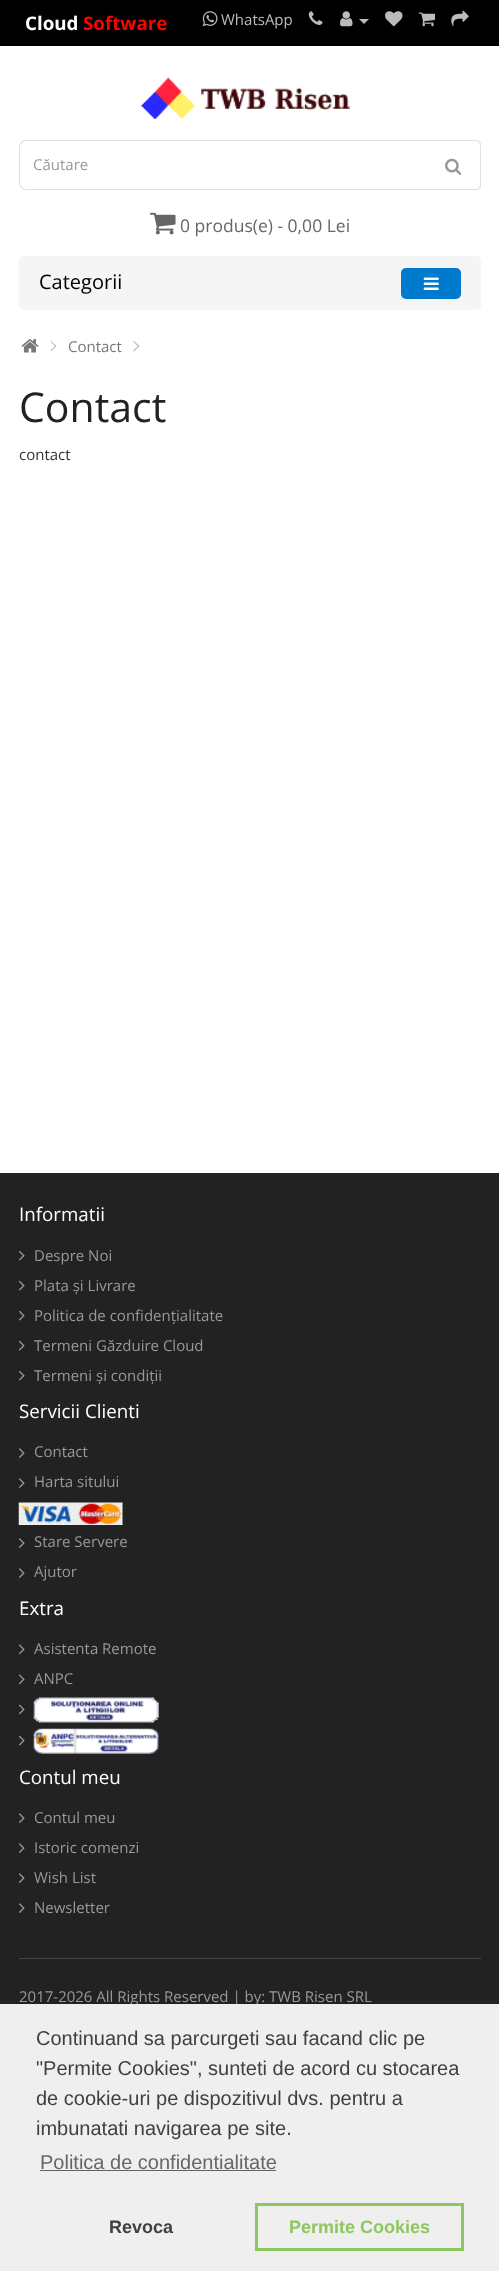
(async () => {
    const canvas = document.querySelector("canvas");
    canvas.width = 499;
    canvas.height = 2271;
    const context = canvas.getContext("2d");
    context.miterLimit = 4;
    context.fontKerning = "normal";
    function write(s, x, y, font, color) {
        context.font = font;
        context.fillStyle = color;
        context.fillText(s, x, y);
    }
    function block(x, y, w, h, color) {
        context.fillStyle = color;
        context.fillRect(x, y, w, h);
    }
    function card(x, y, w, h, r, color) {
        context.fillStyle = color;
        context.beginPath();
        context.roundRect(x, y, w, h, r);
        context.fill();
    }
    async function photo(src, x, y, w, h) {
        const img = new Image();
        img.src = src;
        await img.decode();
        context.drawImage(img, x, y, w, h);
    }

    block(0, 0, 499, 2271, "rgb(255, 255, 255)");
    block(0, 0, 499, 46, "rgb(0, 0, 0)");
    write("Cloud", 25, 30, "bold 18.75px Open Sans", "rgb(255, 255, 255)");
    write("Software", 83, 30, "bold 18.75px Open Sans", "rgb(255, 0, 0)");
    await photo("media/1.png", 202, 11, 16, 16);
    write("WhatsApp", 221, 25, "15px Open Sans", "rgb(187, 187, 187)");
    await photo("media/2.png", 308, 11, 15, 14);
    await photo("media/3.png", 340, 11, 13, 16);
    context.beginPath();
    context.moveTo(359, 19);
    context.lineTo(369, 19);
    context.lineTo(364, 24);
    context.closePath();
    context.fill();
    await photo("media/4.png", 385, 11, 18, 16);
    await photo("media/5.png", 418, 12, 17, 15);
    await photo("media/6.png", 451, 10, 18, 17);
    await photo("media/7.png", 141, 77, 210, 42);
    context.fillStyle = "rgb(224, 224, 224)";
    context.beginPath();
    context.moveTo(26, 140);
    context.lineTo(428, 140);
    context.lineTo(428, 190);
    context.lineTo(26, 190);
    context.bezierCurveTo(22, 190, 19, 187, 19, 182);
    context.lineTo(19, 148);
    context.bezierCurveTo(19, 143, 22, 140, 26, 140);
    context.closePath();
    context.moveTo(26, 141);
    context.lineTo(428, 141);
    context.lineTo(428, 189);
    context.lineTo(26, 189);
    context.bezierCurveTo(23, 189, 20, 186, 20, 182);
    context.lineTo(20, 148);
    context.bezierCurveTo(20, 144, 23, 141, 26, 141);
    context.closePath();
    context.fill("evenodd");
    write("Căutare", 33, 170, "15px Open Sans", "rgb(153, 153, 153)");
    context.fillStyle = "rgb(224, 224, 224)";
    context.beginPath();
    context.moveTo(426, 140);
    context.lineTo(476, 140);
    context.bezierCurveTo(479, 140, 481, 142, 481, 145);
    context.lineTo(481, 185);
    context.bezierCurveTo(481, 188, 479, 190, 476, 190);
    context.lineTo(426, 190);
    context.closePath();
    context.moveTo(426, 141);
    context.lineTo(476, 141);
    context.bezierCurveTo(478, 141, 480, 143, 480, 145);
    context.lineTo(480, 185);
    context.bezierCurveTo(480, 187, 478, 189, 476, 189);
    context.lineTo(426, 189);
    context.closePath();
    context.fill("evenodd");
    await photo("media/8.png", 445, 158, 17, 17);
    await photo("media/9.png", 150, 212, 26, 23);
    write("0 produs(e) - 0,00 Lei", 180, 232, "17.5px Open Sans", "rgb(102, 102, 102)");
    card(19, 256, 462, 54, 5, "rgb(245, 245, 245)");
    write("Categorii", 39, 289, "20px Open Sans", "rgb(0, 0, 0)");
    card(401, 268, 60, 31, 5, "rgb(0, 122, 204)");
    await photo("media/10.png", 423, 277, 16, 13);
    await photo("media/11.png", 21, 339, 18, 14);
    context.fillStyle = "rgb(187, 187, 187)";
    context.beginPath();
    context.moveTo(50.5, 341.5);
    context.lineTo(51, 341);
    context.lineTo(56.5, 346);
    context.lineTo(55.5, 347);
    context.closePath();
    context.fill();
    context.beginPath();
    context.moveTo(50.5, 350.5);
    context.lineTo(55.5, 345.5);
    context.lineTo(56.5, 346);
    context.lineTo(51, 351.5);
    context.closePath();
    context.fill();
    write("Contact", 68, 352, "15px Open Sans", "rgb(119, 119, 119)");
    context.fillStyle = "rgb(187, 187, 187)";
    context.beginPath();
    context.moveTo(133, 341.5);
    context.lineTo(134, 341);
    context.lineTo(139.5, 346);
    context.lineTo(138.5, 347);
    context.closePath();
    context.fill();
    context.beginPath();
    context.moveTo(133, 350.5);
    context.lineTo(138.5, 345.5);
    context.lineTo(139.5, 346);
    context.lineTo(134, 351.5);
    context.closePath();
    context.fill();
    write("Contact", 19, 422, "41px Open Sans", "rgb(34, 34, 34)");
    write("contact", 19, 460, "15px Open Sans", "rgb(51, 51, 51)");
    block(0, 1173, 499, 831, "rgb(34, 34, 34)");
    write("Informatii", 19, 1221, "18.75px Open Sans", "rgb(255, 255, 255)");
    await photo("media/12.png", 18, 1250, 7, 11);
    write("Despre Noi", 34, 1261, "15px Open Sans", "rgb(153, 153, 153)");
    await photo("media/12.png", 18, 1280, 7, 11);
    write("Plata și Livrare", 34, 1291, "15px Open Sans", "rgb(153, 153, 153)");
    await photo("media/12.png", 18, 1310, 7, 11);
    write("Politica de confidențialitate", 34, 1321, "15px Open Sans", "rgb(153, 153, 153)");
    await photo("media/12.png", 18, 1340, 7, 11);
    write("Termeni Găzduire Cloud", 34, 1351, "15px Open Sans", "rgb(153, 153, 153)");
    await photo("media/12.png", 18, 1370, 7, 11);
    write("Termeni și condiții", 34, 1381, "15px Open Sans", "rgb(153, 153, 153)");
    write("Servicii Clienti", 19, 1418, "18.75px Open Sans", "rgb(255, 255, 255)");
    await photo("media/13.png", 19, 1448, 6, 10);
    write("Contact", 34, 1457, "15px Open Sans", "rgb(153, 153, 153)");
    await photo("media/13.png", 19, 1478, 6, 10);
    write("Harta sitului", 34, 1487, "15px Open Sans", "rgb(153, 153, 153)");
    await photo("media/14.png", 18, 1502, 105, 23);
    await photo("media/13.png", 19, 1538, 6, 10);
    write("Stare Servere", 34, 1547, "15px Open Sans", "rgb(153, 153, 153)");
    await photo("media/13.png", 19, 1568, 6, 10);
    write("Ajutor", 34, 1577, "15px Open Sans", "rgb(153, 153, 153)");
    write("Extra", 19, 1615, "18.75px Open Sans", "rgb(255, 255, 255)");
    await photo("media/15.png", 18, 1644, 7, 11);
    write("Asistenta Remote", 34, 1654, "15px Open Sans", "rgb(153, 153, 153)");
    await photo("media/15.png", 18, 1674, 7, 11);
    write("ANPC", 34, 1684, "15px Open Sans", "rgb(153, 153, 153)");
    await photo("media/15.png", 18, 1704, 7, 11);
    await photo("media/16.png", 33, 1697, 126, 26);
    await photo("media/12.png", 18, 1735, 7, 11);
    await photo("media/17.png", 33, 1728, 126, 26);
    write("Contul meu", 19, 1784, "18.75px Open Sans", "rgb(255, 255, 255)");
    await photo("media/13.png", 19, 1813, 6, 10);
    write("Contul meu", 34, 1823, "15px Open Sans", "rgb(153, 153, 153)");
    await photo("media/13.png", 19, 1843, 6, 10);
    write("Istoric comenzi", 34, 1853, "15px Open Sans", "rgb(153, 153, 153)");
    await photo("media/13.png", 19, 1873, 6, 10);
    write("Wish List", 34, 1883, "15px Open Sans", "rgb(153, 153, 153)");
    await photo("media/13.png", 19, 1903, 6, 10);
    write("Newsletter", 34, 1913, "15px Open Sans", "rgb(153, 153, 153)");
    block(19, 1958, 462, 1, "rgb(68, 68, 68)");
    write("2017-2026 All Rights Reserved | by: TWB Risen SRL", 19, 2002, "15px Open Sans", "rgb(153, 153, 153)");
    block(0, 2004, 499, 267, "rgb(239, 239, 239)");
    write("Continuand sa parcurgeti sau facand clic pe", 36, 2045, "20px Liberation Sans", "rgb(64, 64, 64)");
    write("\"Permite Cookies\", sunteti de acord cu stocarea", 36, 2075, "20px Liberation Sans", "rgb(64, 64, 64)");
    write("de cookie-uri pe dispozitivul dvs. pentru a", 36, 2105, "20px Liberation Sans", "rgb(64, 64, 64)");
    write("imbunatati navigarea pe site.", 36, 2135, "20px Liberation Sans", "rgb(64, 64, 64)");
    write("Politica de confidentialitate", 40, 2169, "20px Liberation Sans", "rgb(102, 102, 102)");
    block(40, 2170, 236, 1, "rgb(99, 99, 99)");
    write("Revoca", 109, 2233, "bold 18px Liberation Sans", "rgb(64, 64, 64)");
    context.strokeStyle = "rgb(142, 199, 96)";
    context.lineWidth = 3;
    context.strokeRect(256.5, 2204.5, 206, 45);
    write("Permite Cookies", 289, 2233, "bold 18px Liberation Sans", "rgb(142, 199, 96)");
})();
